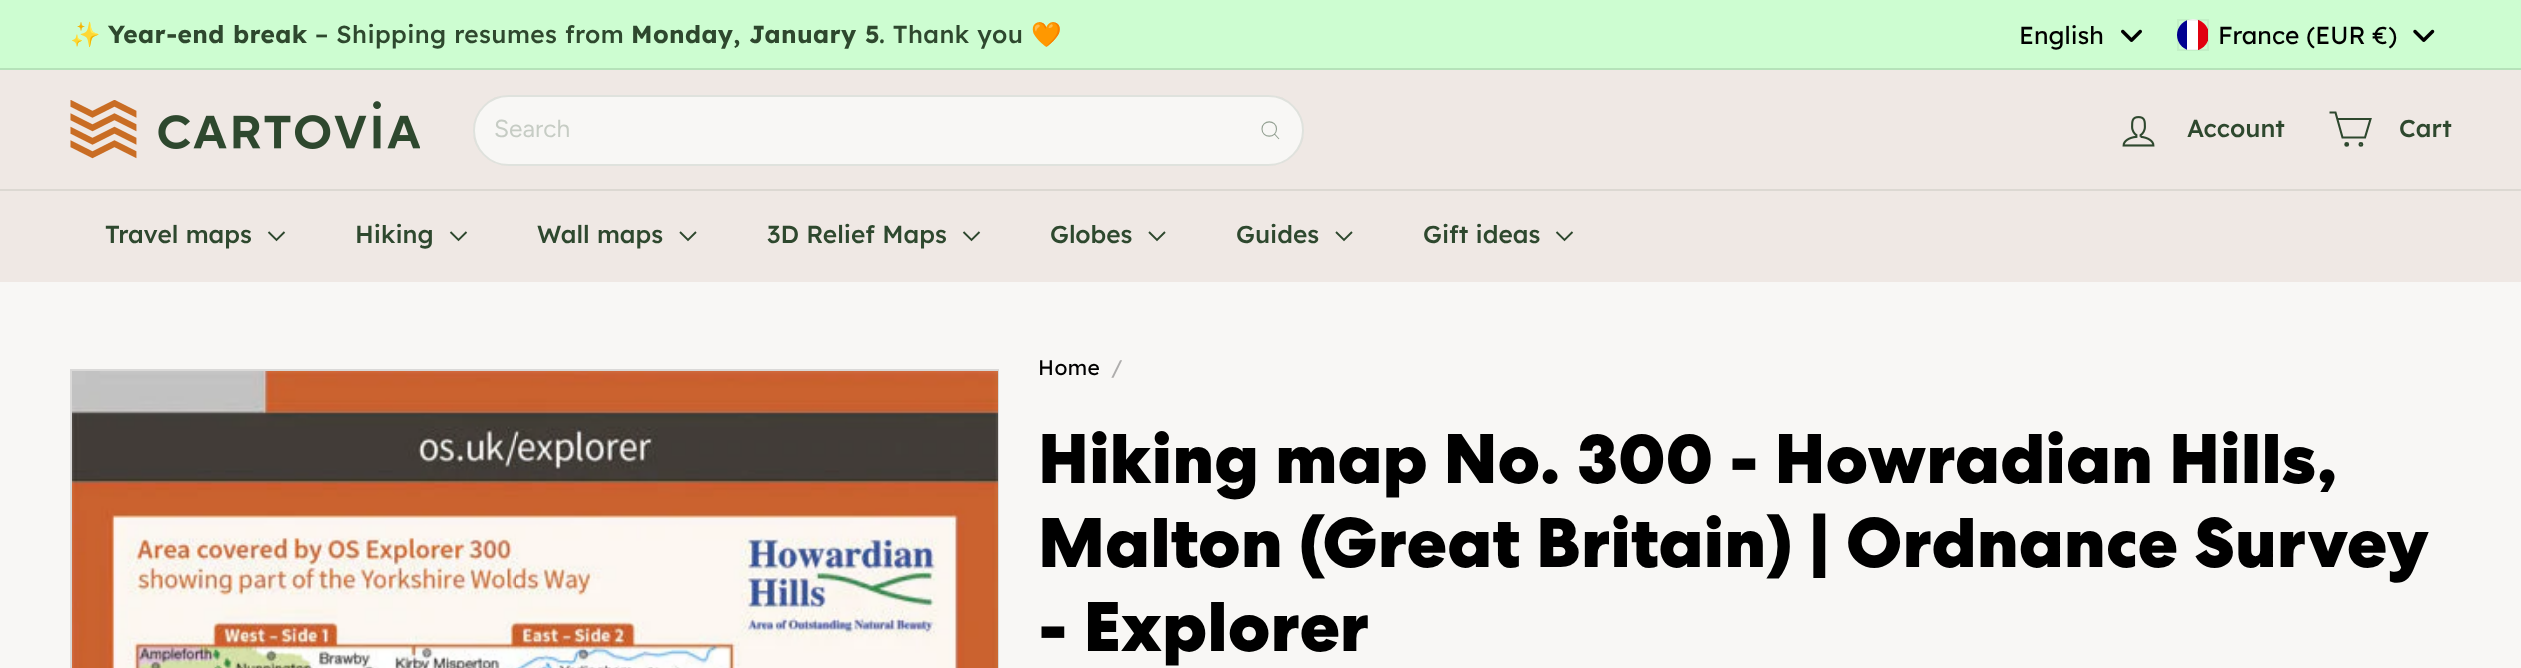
(async () => {
    const canvas = document.querySelector("canvas");
    canvas.width = 2521;
    canvas.height = 668;
    const context = canvas.getContext("2d");
    context.miterLimit = 4;
    context.fontKerning = "normal";
    function write(s, x, y, font, color) {
        context.font = font;
        context.fillStyle = color;
        context.fillText(s, x, y);
    }
    function block(x, y, w, h, color) {
        context.fillStyle = color;
        context.fillRect(x, y, w, h);
    }
    function card(x, y, w, h, r, color) {
        context.fillStyle = color;
        context.beginPath();
        context.roundRect(x, y, w, h, r);
        context.fill();
    }
    async function photo(src, x, y, w, h) {
        const img = new Image();
        img.src = src;
        await img.decode();
        context.drawImage(img, x, y, w, h);
    }

    block(0, 0, 2521, 668, "rgb(248, 247, 245)");
    block(0, 0, 2521, 68, "rgb(205, 253, 209)");
    context.letterSpacing = "0.4px";
    write("✨", 70, 43, "24.5px Noto Color Emoji", "rgb(46, 72, 46)");
    write("Year-end break", 108, 43, "bold 24.5px Lexend", "rgb(46, 72, 46)");
    write("– Shipping resumes from", 315, 43, "500 24.5px Lexend", "rgb(46, 72, 46)");
    write("Monday, January 5", 631, 43, "bold 24.5px Lexend", "rgb(46, 72, 46)");
    write(". Thank you", 879, 43, "500 24.5px Lexend", "rgb(46, 72, 46)");
    write("🧡", 1031, 43, "24.5px Noto Color Emoji", "rgb(46, 72, 46)");
    await photo("media/1.png", 2121, 29, 21, 13);
    context.letterSpacing = "0px";
    write("English", 2019, 44, "24.5px Lexend", "rgb(0, 0, 0)");
    await photo("media/2.png", 2413, 29, 22, 13);
    context.save();
    context.beginPath();
    context.roundRect(2177, 19, 32, 32, 16);
    context.clip();
    context.fillStyle = "rgb(255, 255, 255)";
    context.beginPath();
    context.roundRect(2177, 19, 31, 31, [16, 0, 0, 0]);
    context.fill();
    block(2177, 20, 10, 30, "rgb(0, 0, 145)");
    block(2198, 19, 10, 31, "rgb(225, 0, 15)");
    context.restore();
    context.strokeStyle = "rgba(0, 0, 0, 0.05)";
    context.lineWidth = 2;
    context.strokeRect(2178, 20, 30, 30);
    write("France (EUR €)", 2218, 44, "24.5px Lexend", "rgb(0, 0, 0)");
    block(0, 68, 2521, 2, "rgb(181, 226, 185)");
    block(0, 70, 2521, 119, "rgb(239, 232, 228)");
    await photo("media/3.png", 70, 100, 350, 59);
    card(473, 95, 831, 71, 35.5, "rgb(248, 247, 245)");
    context.beginPath();
    context.roundRect(474, 96, 829, 69, 34.5);
    context.strokeStyle = "rgba(46, 72, 46, 0.12)";
    context.stroke();
    write("Search", 494, 137, "24.5px Figtree", "rgb(198, 204, 196)");
    context.beginPath();
    context.moveTo(1276.5, 129);
    context.bezierCurveTo(1276.5, 138.5, 1262, 138.5, 1262, 129);
    context.bezierCurveTo(1262, 119.5, 1276.5, 119.5, 1276.5, 129);
    context.moveTo(1279, 139);
    context.lineTo(1274.5, 134);
    context.strokeStyle = "rgb(147, 160, 146)";
    context.lineWidth = 1.1;
    context.stroke();
    await photo("media/4.png", 2122, 116, 33, 31);
    write("Account", 2187, 137, "500 24.5px Lexend", "rgb(46, 72, 46)");
    context.beginPath();
    context.moveTo(2337.5, 119);
    context.lineTo(2370.5, 119);
    context.lineTo(2365, 137.5);
    context.lineTo(2342.5, 137.5);
    context.lineTo(2335.5, 112.5);
    context.lineTo(2329.5, 112.5);
    context.strokeStyle = "rgb(46, 72, 46)";
    context.lineWidth = 2.1;
    context.stroke();
    context.beginPath();
    context.arc(2346.7, 144.4, 1.4, 0, Math.PI * 2);
    context.fill();
    context.stroke();
    context.beginPath();
    context.arc(2360.9, 144.4, 1.4, 0, Math.PI * 2);
    context.stroke();
    write("Cart", 2399, 137, "500 24.5px Lexend", "rgb(46, 72, 46)");
    block(0, 191, 2521, 91, "rgb(239, 232, 228)");
    block(0, 189, 2521, 2, "rgb(220, 216, 210)");
    write("Travel maps", 105, 243, "500 24.5px Lexend", "rgb(46, 72, 46)");
    context.beginPath();
    context.moveTo(268.5, 232);
    context.lineTo(276.5, 240);
    context.lineTo(284.5, 232);
    context.lineWidth = 1.9;
    context.stroke();
    write("Hiking", 355, 243, "500 24.5px Lexend", "rgb(46, 72, 46)");
    context.beginPath();
    context.moveTo(450.5, 232);
    context.lineTo(458.5, 240);
    context.lineTo(466.5, 232);
    context.stroke();
    write("Wall maps", 537, 243, "500 24.5px Lexend", "rgb(46, 72, 46)");
    context.beginPath();
    context.moveTo(680, 232);
    context.lineTo(688, 240);
    context.lineTo(696, 232);
    context.stroke();
    write("3D Relief Maps", 767, 243, "500 24.5px Lexend", "rgb(46, 72, 46)");
    context.beginPath();
    context.moveTo(963.5, 232);
    context.lineTo(971.5, 240);
    context.lineTo(979.5, 232);
    context.stroke();
    write("Globes", 1050, 243, "500 24.5px Lexend", "rgb(46, 72, 46)");
    context.beginPath();
    context.moveTo(1149, 232);
    context.lineTo(1157, 240);
    context.lineTo(1165, 232);
    context.stroke();
    write("Guides", 1236, 243, "500 24.5px Lexend", "rgb(46, 72, 46)");
    context.beginPath();
    context.moveTo(1336, 232);
    context.lineTo(1344, 240);
    context.lineTo(1352, 232);
    context.stroke();
    write("Gift ideas", 1423, 243, "500 24.5px Lexend", "rgb(46, 72, 46)");
    context.beginPath();
    context.moveTo(1556.5, 232);
    context.lineTo(1564.5, 240);
    context.lineTo(1572.5, 232);
    context.stroke();
    context.strokeStyle = "rgb(218, 217, 216)";
    context.lineWidth = 2;
    context.strokeRect(71, 370, 927, 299);
    await photo("media/5.png", 72, 371, 926, 297);
    context.letterSpacing = "0.4px";
    write("Home", 1038, 375, "21px Lexend", "rgb(0, 0, 0)");
    write("/", 1111, 375, "21px Lexend", "rgb(174, 173, 172)");
    context.letterSpacing = "0px";
    write("Hiking map No. 300 - Howradian Hills,", 1038, 483, "800 70px 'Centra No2'", "rgb(0, 0, 0)");
    write("Malton (Great Britain) | Ordnance Survey", 1038, 567, "800 70px 'Centra No2'", "rgb(0, 0, 0)");
    write("- Explorer", 1038, 651, "800 70px 'Centra No2'", "rgb(0, 0, 0)");
})();
